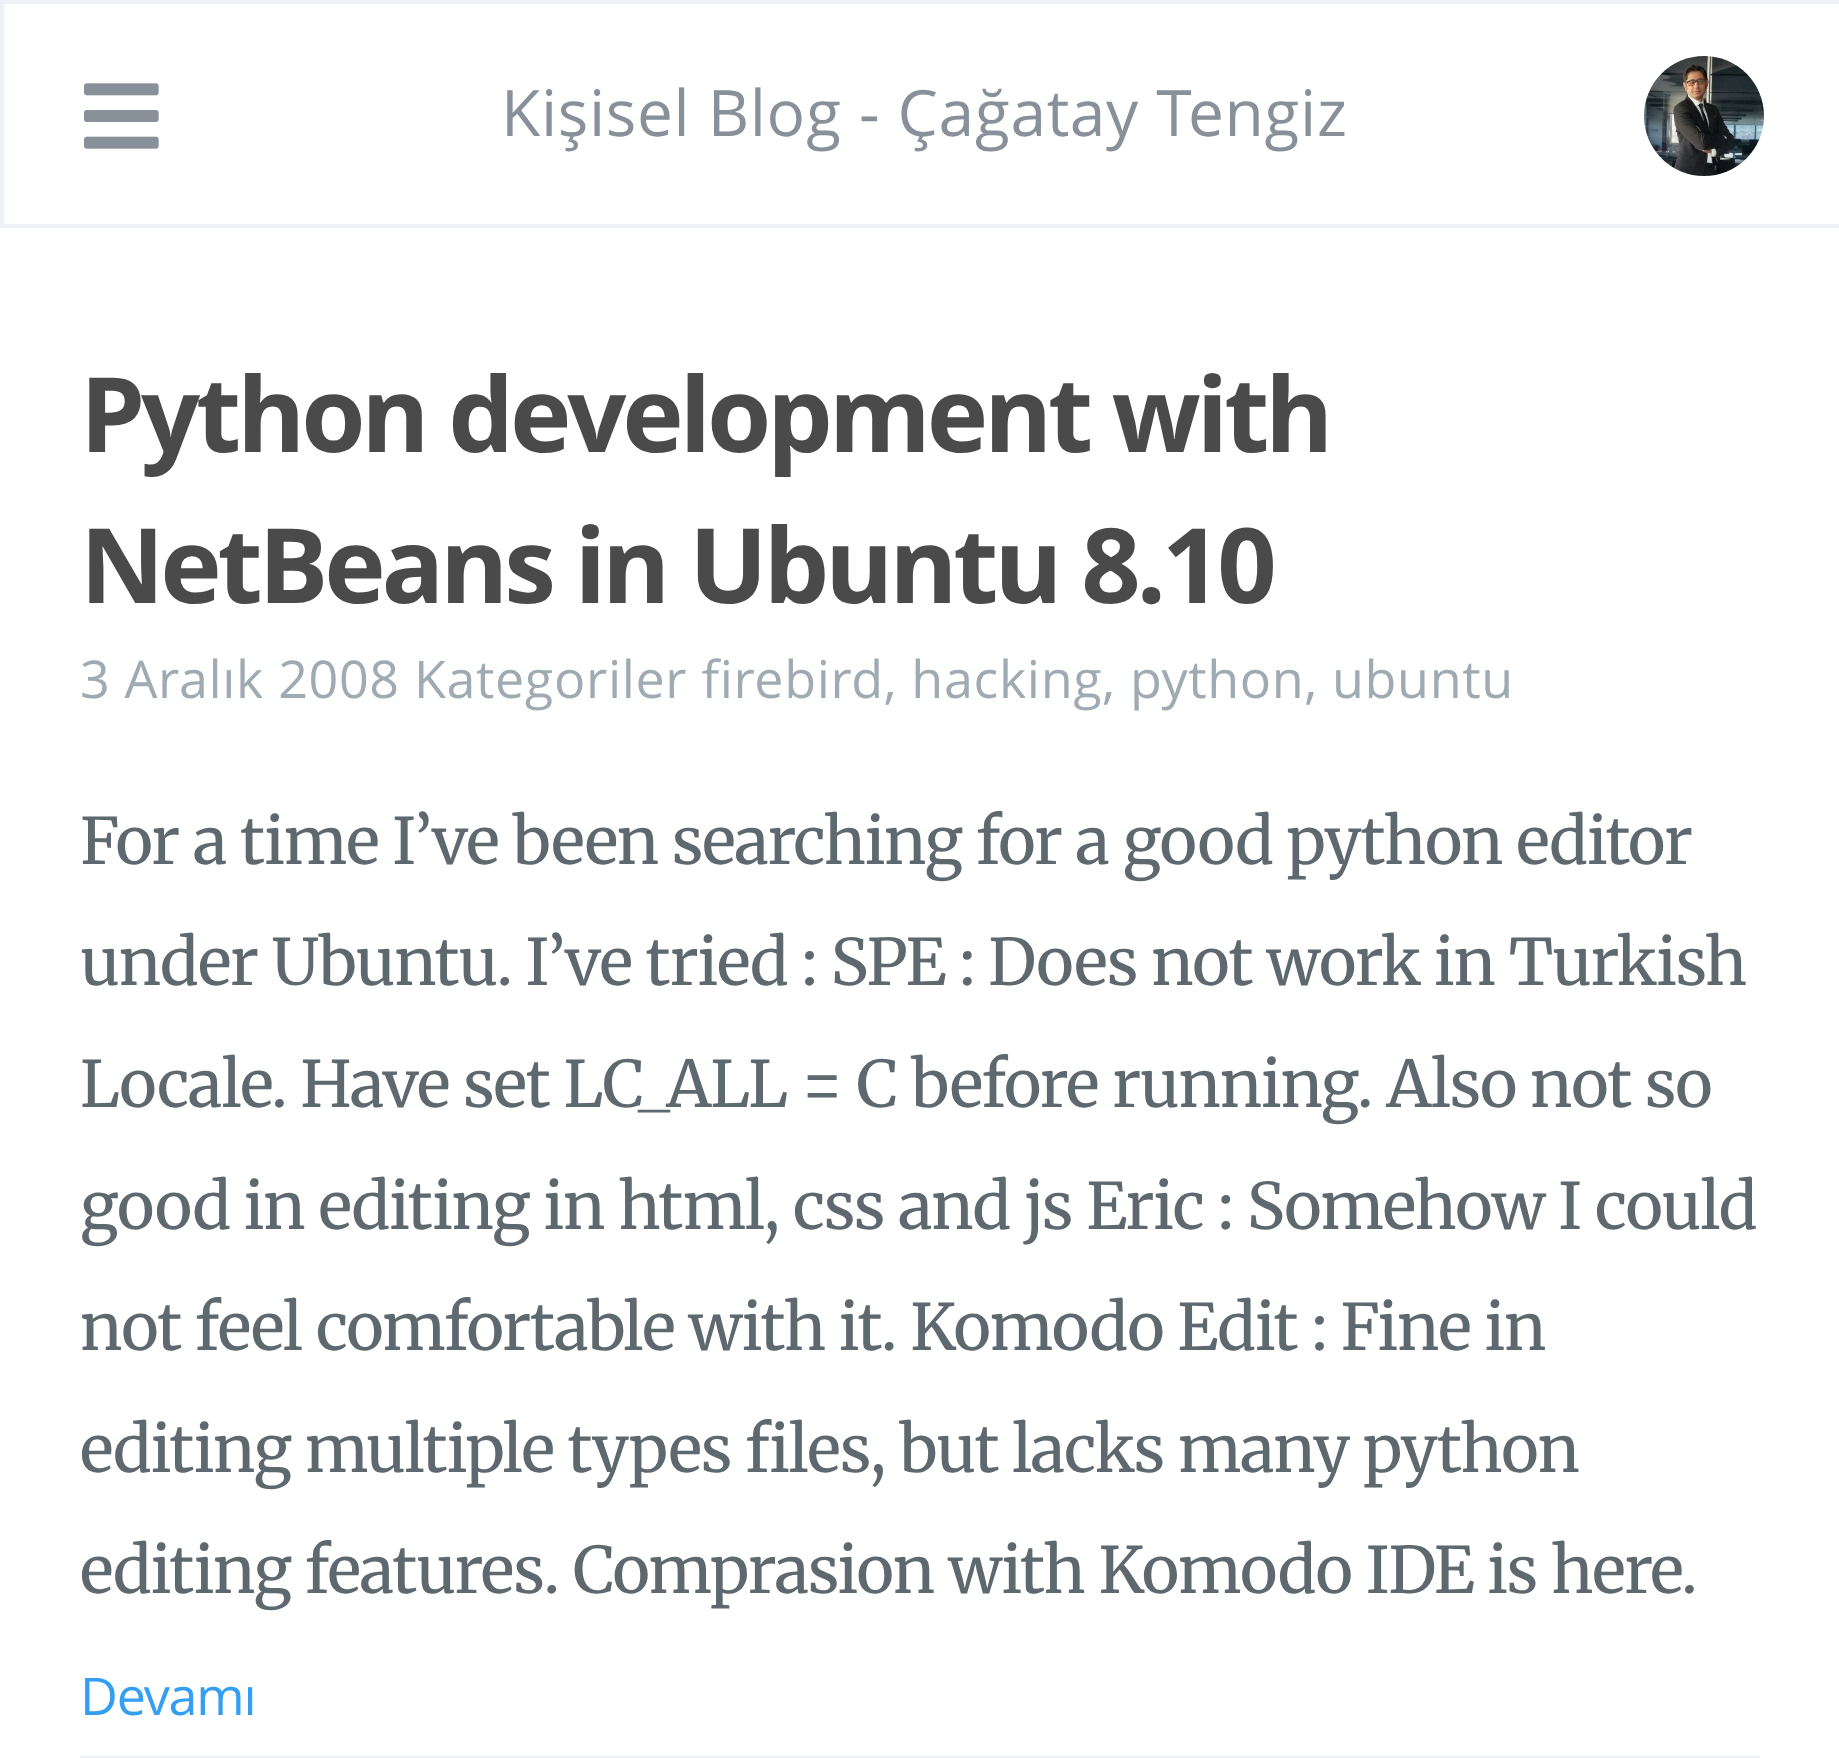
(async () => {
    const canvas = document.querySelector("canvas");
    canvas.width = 1839;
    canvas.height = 1758;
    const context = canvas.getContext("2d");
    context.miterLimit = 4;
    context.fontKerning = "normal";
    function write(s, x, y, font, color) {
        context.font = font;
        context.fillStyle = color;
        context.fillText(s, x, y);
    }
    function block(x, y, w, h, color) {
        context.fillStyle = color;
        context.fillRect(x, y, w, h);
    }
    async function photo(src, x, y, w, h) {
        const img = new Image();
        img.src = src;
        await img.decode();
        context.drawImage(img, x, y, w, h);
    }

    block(0, 0, 1839, 1758, "rgb(255, 255, 255)");
    context.strokeStyle = "rgb(238, 242, 248)";
    context.lineWidth = 4;
    context.strokeRect(2, 2, 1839, 224);
    await photo("media/1.png", 84, 83, 75, 66);
    context.letterSpacing = "0.65px";
    write("Kişisel Blog - Çağatay Tengiz", 501, 136, "64px Open Sans", "rgb(136, 144, 154)");
    await photo("media/2.png", 1644, 56, 120, 120);
    block(80, 1756, 1680, 2, "rgb(238, 242, 248)");
    context.letterSpacing = "-4.2px";
    write("Python development with", 80, 452, "bold 104px Open Sans", "rgb(74, 74, 74)");
    write("NetBeans in Ubuntu 8.10", 80, 603, "bold 104px Open Sans", "rgb(74, 74, 74)");
    context.letterSpacing = "0.65px";
    write("3 Aralık 2008 Kategoriler firebird, hacking, python, ubuntu", 80, 698, "52px Open Sans", "rgb(158, 171, 179)");
    context.letterSpacing = "-1.2px";
    write("For a time I’ve been searching for a good python editor", 80, 864, "64px Merriweather", "rgb(93, 104, 111)");
    write("under Ubuntu. I’ve tried : SPE : Does not work in Turkish", 80, 985, "64px Merriweather", "rgb(93, 104, 111)");
    write("Locale. Have set LC_ALL = C before running. Also not so", 80, 1107, "64px Merriweather", "rgb(93, 104, 111)");
    write("good in editing in html, css and js Eric : Somehow I could", 80, 1229, "64px Merriweather", "rgb(93, 104, 111)");
    write("not feel comfortable with it. Komodo Edit : Fine in", 80, 1350, "64px Merriweather", "rgb(93, 104, 111)");
    write("editing multiple types files, but lacks many python", 80, 1472, "64px Merriweather", "rgb(93, 104, 111)");
    write("editing features. Comprasion with Komodo IDE is here.", 80, 1593, "64px Merriweather", "rgb(93, 104, 111)");
    write("Devamı", 80, 1715, "52px Open Sans", "rgb(52, 158, 243)");
})();
